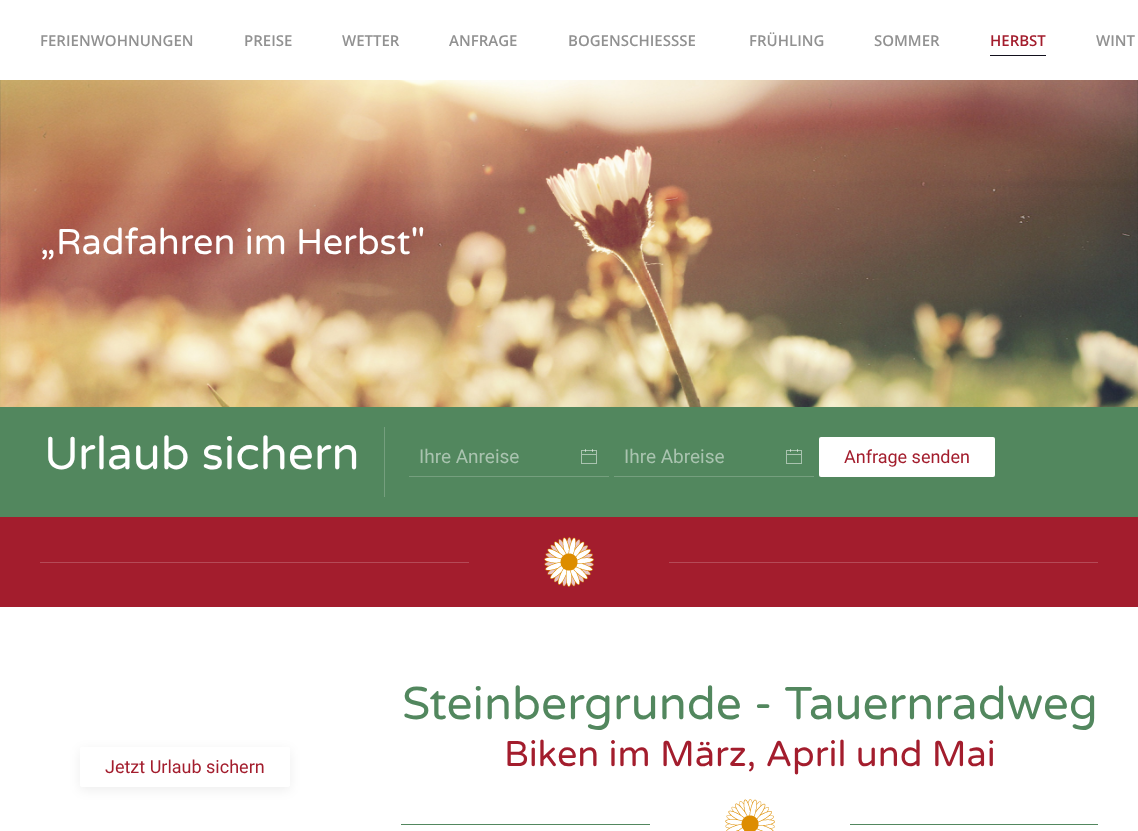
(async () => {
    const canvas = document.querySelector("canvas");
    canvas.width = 1138;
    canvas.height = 831;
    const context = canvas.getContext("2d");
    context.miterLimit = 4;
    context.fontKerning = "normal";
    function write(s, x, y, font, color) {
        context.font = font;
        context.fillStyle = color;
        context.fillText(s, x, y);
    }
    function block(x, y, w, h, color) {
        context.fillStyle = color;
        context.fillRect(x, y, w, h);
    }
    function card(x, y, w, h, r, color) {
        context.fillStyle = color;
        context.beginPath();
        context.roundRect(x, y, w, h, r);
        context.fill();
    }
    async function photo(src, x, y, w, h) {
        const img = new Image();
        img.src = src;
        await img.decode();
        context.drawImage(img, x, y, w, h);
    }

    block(0, 0, 1138, 831, "rgb(255, 255, 255)");
    write("FERIENWOHNUNGEN", 40, 46, "600 15px Open Sans", "rgb(145, 145, 145)");
    write("PREISE", 244, 46, "600 15px Open Sans", "rgb(145, 145, 145)");
    write("WETTER", 342, 46, "600 15px Open Sans", "rgb(145, 145, 145)");
    write("ANFRAGE", 449, 46, "600 15px Open Sans", "rgb(145, 145, 145)");
    write("BOGENSCHIESSSE", 568, 46, "600 15px Open Sans", "rgb(145, 145, 145)");
    write("FRÜHLING", 749, 46, "600 15px Open Sans", "rgb(145, 145, 145)");
    write("SOMMER", 874, 46, "600 15px Open Sans", "rgb(145, 145, 145)");
    write("HERBST", 990, 46, "600 15px Open Sans", "rgb(163, 29, 45)");
    block(990, 55, 56, 1, "rgb(18, 16, 29)");
    write("WINT", 1096, 46, "600 15px Open Sans", "rgb(145, 145, 145)");
    await photo("media/1.png", 0, 80, 1138, 327);
    write("„Radfahren im Herbst\"", 40, 254, "36px Varela Round", "rgb(255, 255, 255)");
    block(0, 407, 1138, 110, "rgb(82, 135, 94)");
    write("Urlaub sichern", 44, 469, "46px Varela Round", "rgb(255, 255, 255)");
    block(384, 427, 1, 70, "rgb(117, 159, 126)");
    block(409, 476, 200, 1, "rgb(117, 159, 126)");
    write("Ihre Anreise", 419, 463, "19px Roboto", "rgb(169, 195, 175)");
    await photo("media/2.png", 581, 449, 16, 15);
    block(614, 476, 200, 1, "rgb(117, 159, 126)");
    write("Ihre Abreise", 624, 463, "19px Roboto", "rgb(169, 195, 175)");
    await photo("media/2.png", 786, 449, 16, 15);
    card(819, 437, 176, 40, 2, "rgb(255, 255, 255)");
    write("Anfrage senden", 844, 463, "18px Roboto", "rgb(163, 29, 45)");
    block(0, 517, 1138, 90, "rgb(163, 29, 45)");
    await photo("media/3.png", 544, 537, 50, 50);
    block(40, 562, 429, 1, "rgb(181, 74, 87)");
    block(669, 562, 429, 1, "rgb(181, 74, 87)");
    context.save();
    context.beginPath();
    context.moveTo(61, 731);
    context.lineTo(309, 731);
    context.lineTo(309, 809);
    context.lineTo(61, 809);
    context.closePath();
    context.moveTo(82, 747);
    context.lineTo(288, 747);
    context.bezierCurveTo(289, 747, 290, 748, 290, 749);
    context.lineTo(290, 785);
    context.bezierCurveTo(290, 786, 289, 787, 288, 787);
    context.lineTo(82, 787);
    context.bezierCurveTo(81, 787, 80, 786, 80, 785);
    context.lineTo(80, 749);
    context.bezierCurveTo(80, 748, 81, 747, 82, 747);
    context.closePath();
    context.clip("evenodd");
    context.fillStyle = "rgba(0, 0, 0, 0.07)";
    context.filter = "blur(6px)";
    context.beginPath();
    context.roundRect(80, 750, 210, 40, 2);
    context.fill();
    context.filter = "none";
    context.restore();
    write("Jetzt Urlaub sichern", 105, 773, "18px Roboto", "rgb(163, 29, 45)");
    write("Steinbergrunde - Tauernradweg", 402, 719, "46px Varela Round", "rgb(82, 135, 94)");
    write("Biken im März, April und Mai", 504, 766, "36px Varela Round", "rgb(163, 29, 45)");
    await photo("media/4.png", 725, 799, 50, 32);
    block(401, 824, 249, 1, "rgb(82, 135, 94)");
    block(850, 824, 248, 1, "rgb(82, 135, 94)");
})();
